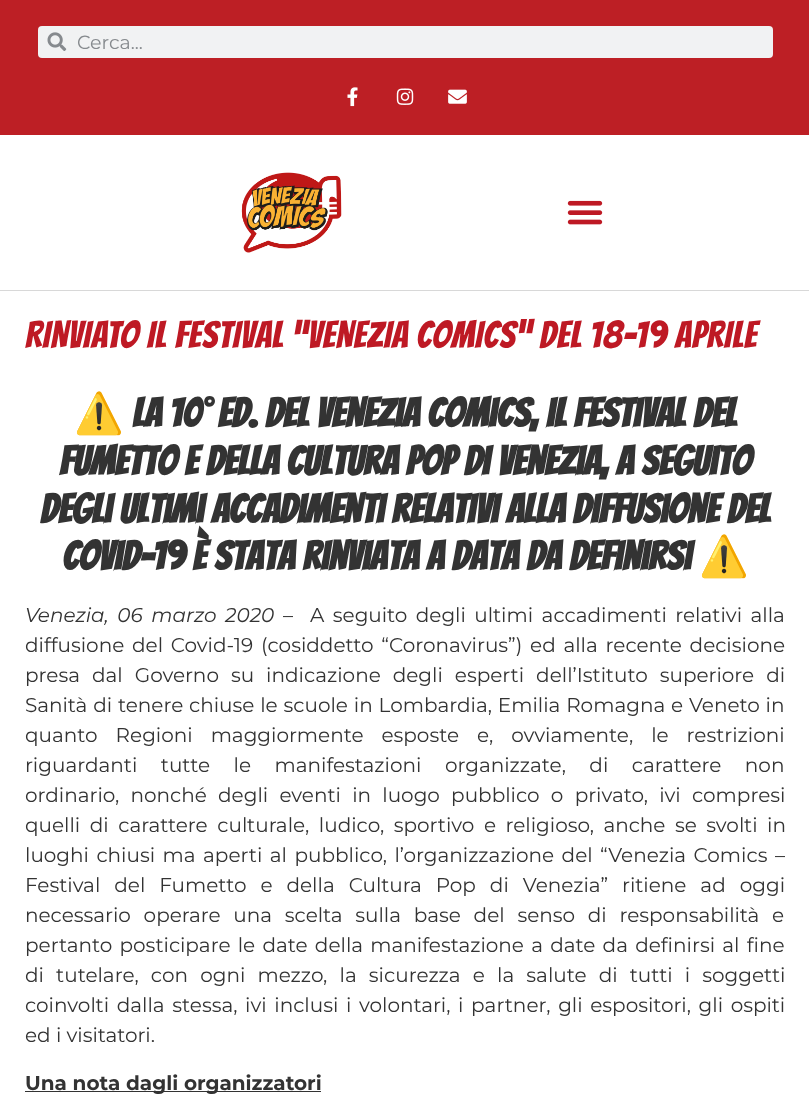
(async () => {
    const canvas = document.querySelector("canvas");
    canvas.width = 809;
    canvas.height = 1102;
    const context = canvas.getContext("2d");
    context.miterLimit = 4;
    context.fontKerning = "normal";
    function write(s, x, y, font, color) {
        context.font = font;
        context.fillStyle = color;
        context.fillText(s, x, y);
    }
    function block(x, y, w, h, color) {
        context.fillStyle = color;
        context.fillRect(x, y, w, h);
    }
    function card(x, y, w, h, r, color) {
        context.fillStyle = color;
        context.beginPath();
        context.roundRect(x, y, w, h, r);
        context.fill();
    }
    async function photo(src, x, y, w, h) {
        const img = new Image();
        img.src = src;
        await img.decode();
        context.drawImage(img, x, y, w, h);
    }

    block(0, 0, 809, 1102, "rgb(255, 255, 255)");
    block(0, 0, 809, 135, "rgb(189, 31, 37)");
    card(38, 26, 735, 32, 4, "rgb(241, 242, 243)");
    await photo("media/1.png", 47, 32, 20, 19);
    write("Cerca...", 77, 49, "19px Montserrat", "rgb(134, 138, 142)");
    await photo("media/2.png", 347, 87, 11, 20);
    await photo("media/3.png", 396, 88, 18, 17);
    await photo("media/4.png", 448, 89, 19, 15);
    block(0, 290, 809, 1, "rgb(216, 216, 216)");
    await photo("media/5.png", 241, 172, 101, 81);
    await photo("media/6.png", 567, 200, 36, 25);
    context.letterSpacing = "0.62px";
    write("RINVIATO IL FESTIVAL “VENEZIA COMICS” DEL 18-19 APRILE", 25, 348, "37.5px Bangers", "rgb(190, 25, 36)");
    context.letterSpacing = "0px";
    write("⚠️", 74, 427, "bold 40px Noto Color Emoji", "rgb(51, 51, 51)");
    write("La 10° ed. del Venezia Comics, il festival del", 132, 427, "bold 40px Bangers", "rgb(51, 51, 51)");
    write("fumetto e della cultura pop di Venezia, a seguito", 59, 475, "bold 40px Bangers", "rgb(51, 51, 51)");
    write("degli ultimi accadimenti relativi alla diffusione del", 40, 523, "bold 40px Bangers", "rgb(51, 51, 51)");
    write("Covid-19 è stata rinviata a data da definirsi", 62, 570, "bold 40px Bangers", "rgb(51, 51, 51)");
    write("⚠️", 699, 570, "bold 40px Noto Color Emoji", "rgb(51, 51, 51)");
    context.wordSpacing = "3.25px";
    write("Venezia, 06 marzo 2020", 25, 622, "italic 20px Montserrat", "rgb(51, 51, 51)");
    write("–  A seguito degli ultimi accadimenti relativi alla", 283, 622, "20px Montserrat", "rgb(51, 51, 51)");
    context.wordSpacing = "2.5px";
    write("diffusione del Covid-19 (cosiddetto “Coronavirus”) ed alla recente decisione", 25, 652, "20px Montserrat", "rgb(51, 51, 51)");
    context.wordSpacing = "6.75px";
    write("presa dal Governo su indicazione degli esperti dell’Istituto superiore di", 25, 682, "20px Montserrat", "rgb(51, 51, 51)");
    context.wordSpacing = "0.6px";
    write("Sanità di tenere chiuse le scuole in Lombardia, Emilia Romagna e Veneto in", 25, 712, "20px Montserrat", "rgb(51, 51, 51)");
    context.wordSpacing = "12.75px";
    write("quanto Regioni maggiormente esposte e, ovviamente, le restrizioni", 25, 742, "20px Montserrat", "rgb(51, 51, 51)");
    context.wordSpacing = "18.25px";
    write("riguardanti tutte le manifestazioni organizzate, di carattere non", 25, 772, "20px Montserrat", "rgb(51, 51, 51)");
    context.wordSpacing = "6px";
    write("ordinario, nonché degli eventi in luogo pubblico o privato, ivi compresi", 25, 802, "20px Montserrat", "rgb(51, 51, 51)");
    context.wordSpacing = "4.25px";
    write("quelli di carattere culturale, ludico, sportivo e religioso, anche se svolti in", 25, 832, "20px Montserrat", "rgb(51, 51, 51)");
    context.wordSpacing = "2.25px";
    write("luoghi chiusi ma aperti al pubblico, l’organizzazione del “Venezia Comics –", 25, 862, "20px Montserrat", "rgb(51, 51, 51)");
    context.wordSpacing = "8.75px";
    write("Festival del Fumetto e della Cultura Pop di Venezia” ritiene ad oggi", 25, 892, "20px Montserrat", "rgb(51, 51, 51)");
    context.wordSpacing = "7.5px";
    write("necessario operare una scelta sulla base del senso di responsabilità e", 25, 922, "20px Montserrat", "rgb(51, 51, 51)");
    context.wordSpacing = "2px";
    write("pertanto posticipare le date della manifestazione a date da definirsi al fine", 25, 952, "20px Montserrat", "rgb(51, 51, 51)");
    context.wordSpacing = "6.9px";
    write("di tutelare, con ogni mezzo, la sicurezza e la salute di tutti i soggetti", 25, 982, "20px Montserrat", "rgb(51, 51, 51)");
    context.wordSpacing = "2.4px";
    write("coinvolti dalla stessa, ivi inclusi i volontari, i partner, gli espositori, gli ospiti", 25, 1012, "20px Montserrat", "rgb(51, 51, 51)");
    context.wordSpacing = "0px";
    write("ed i visitatori.", 25, 1042, "20px Montserrat", "rgb(51, 51, 51)");
    block(25, 1091, 296, 1, "rgb(51, 51, 51)");
    write("Una nota dagli organizzatori", 25, 1090, "bold 20px Montserrat", "rgb(51, 51, 51)");
})();
